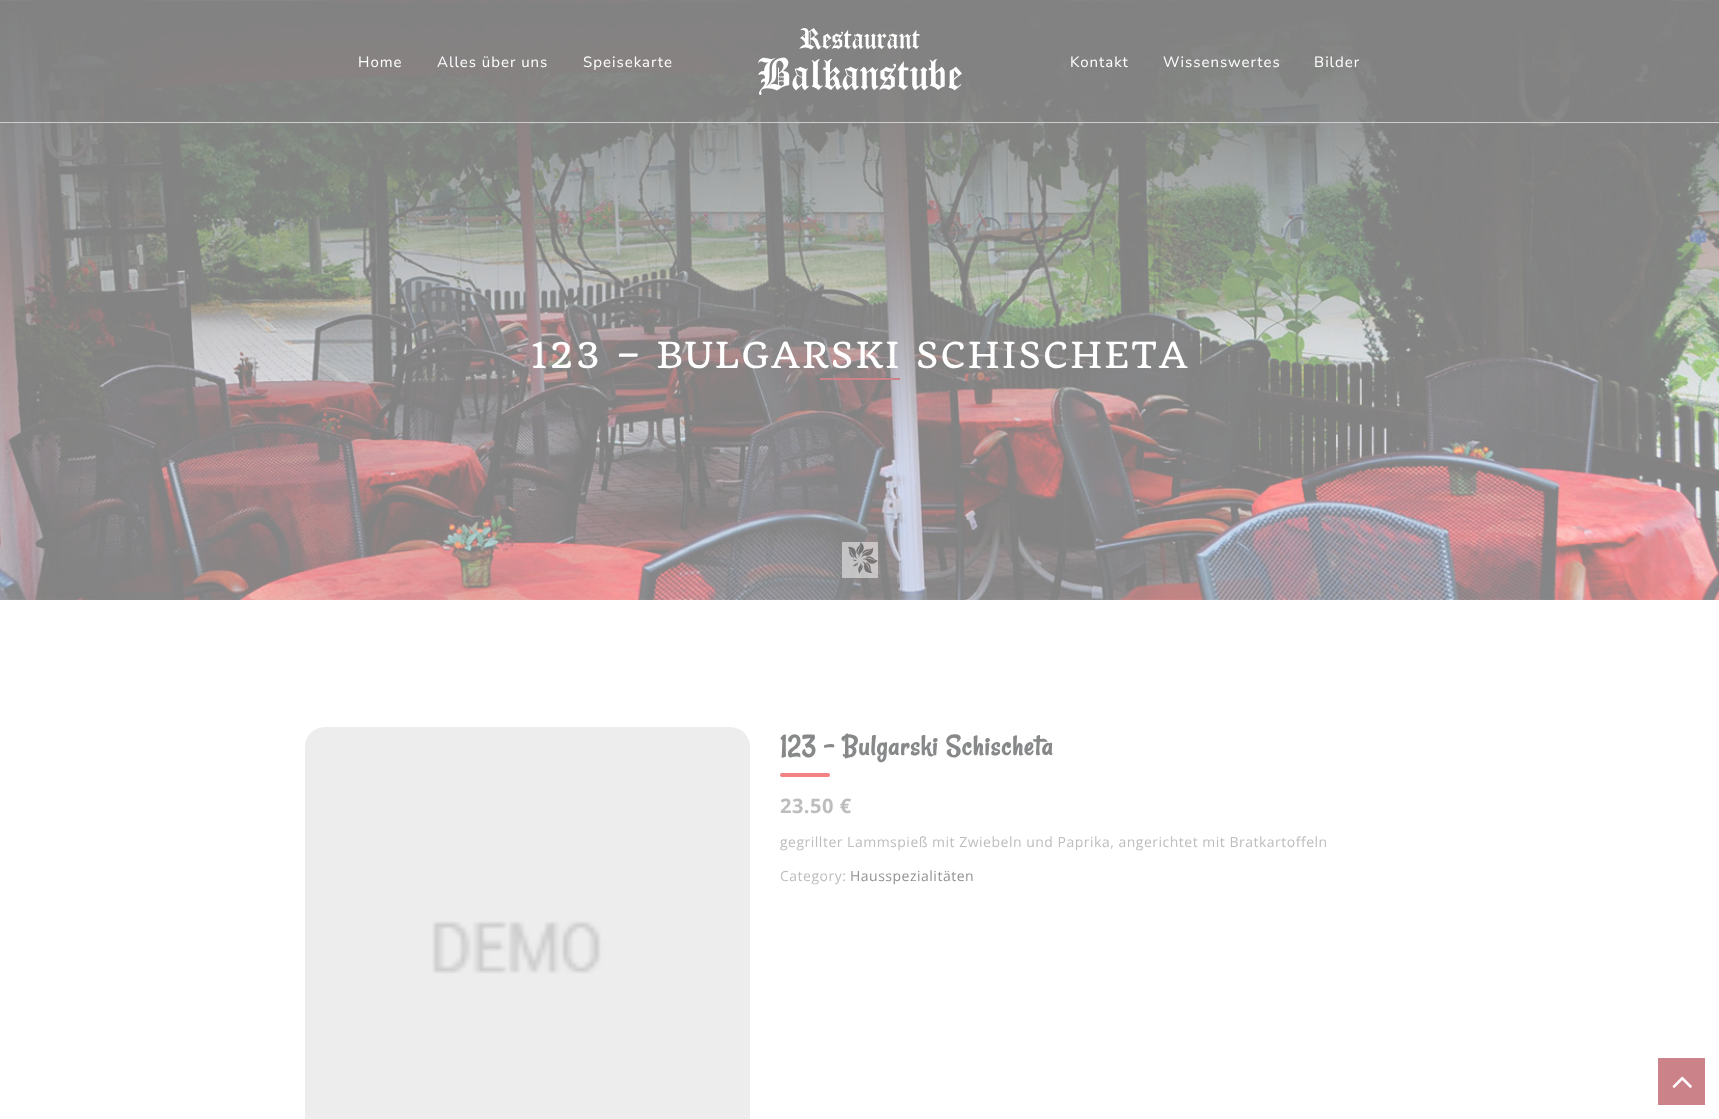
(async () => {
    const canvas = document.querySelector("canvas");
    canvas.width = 1719;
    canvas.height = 1119;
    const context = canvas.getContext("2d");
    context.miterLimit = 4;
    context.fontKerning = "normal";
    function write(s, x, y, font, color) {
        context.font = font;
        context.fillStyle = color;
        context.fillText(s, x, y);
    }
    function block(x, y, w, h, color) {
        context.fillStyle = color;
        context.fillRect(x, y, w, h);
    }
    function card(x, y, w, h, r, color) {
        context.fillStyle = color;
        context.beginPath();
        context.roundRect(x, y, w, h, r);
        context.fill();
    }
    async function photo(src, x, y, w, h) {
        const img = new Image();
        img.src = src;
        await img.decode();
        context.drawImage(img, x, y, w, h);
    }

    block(0, 0, 1719, 1119, "rgb(255, 255, 255)");
    await photo("media/2.png", 0, 0, 1719, 600);
    block(0, 122, 1719, 1, "rgb(255, 255, 255)");
    block(0, 0, 1719, 123, "rgba(130, 130, 130, 0.4)");
    await photo("media/1.png", 758, 28, 204, 67);
    context.letterSpacing = "1px";
    write("Home", 358, 67, "15px Nunito Sans", "rgb(255, 255, 255)");
    write("Alles über uns", 437, 67, "15px Nunito Sans", "rgb(255, 255, 255)");
    write("Speisekarte", 583, 67, "15px Nunito Sans", "rgb(255, 255, 255)");
    write("Kontakt", 1070, 67, "15px Nunito Sans", "rgb(255, 255, 255)");
    write("Wissenswertes", 1163, 67, "15px Nunito Sans", "rgb(255, 255, 255)");
    write("Bilder", 1314, 67, "15px Nunito Sans", "rgb(255, 255, 255)");
    context.letterSpacing = "2px";
    write("123 – BULGARSKI SCHISCHETA", 530, 368, "35px Quando", "rgb(255, 255, 255)");
    block(820, 378, 80, 2, "rgb(204, 130, 137)");
    await photo("media/3.png", 305, 727, 445, 392);
    context.letterSpacing = "1px";
    write("123 – Bulgarski Schischeta", 780, 755, "bold 30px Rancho", "rgb(135, 136, 137)");
    card(780, 773, 50, 4, 2, "rgb(243, 130, 130)");
    context.letterSpacing = "0.5px";
    write("23.50 €", 780, 813, "bold 20px Open Sans", "rgb(189, 189, 189)");
    write("gegrillter Lammspieß mit Zwiebeln und Paprika, angerichtet mit Bratkartoffeln", 780, 847, "14px Open Sans", "rgb(189, 189, 189)");
    write("Category:", 780, 881, "14px Open Sans", "rgb(189, 189, 189)");
    write("Hausspezialitäten", 850, 881, "14px Open Sans", "rgb(146, 146, 146)");
    await photo("media/4.png", 842, 542, 36, 36);
    block(1658, 1058, 47, 47, "rgb(204, 130, 137)");
    await photo("media/5.png", 1672, 1076, 20, 12);
})();
